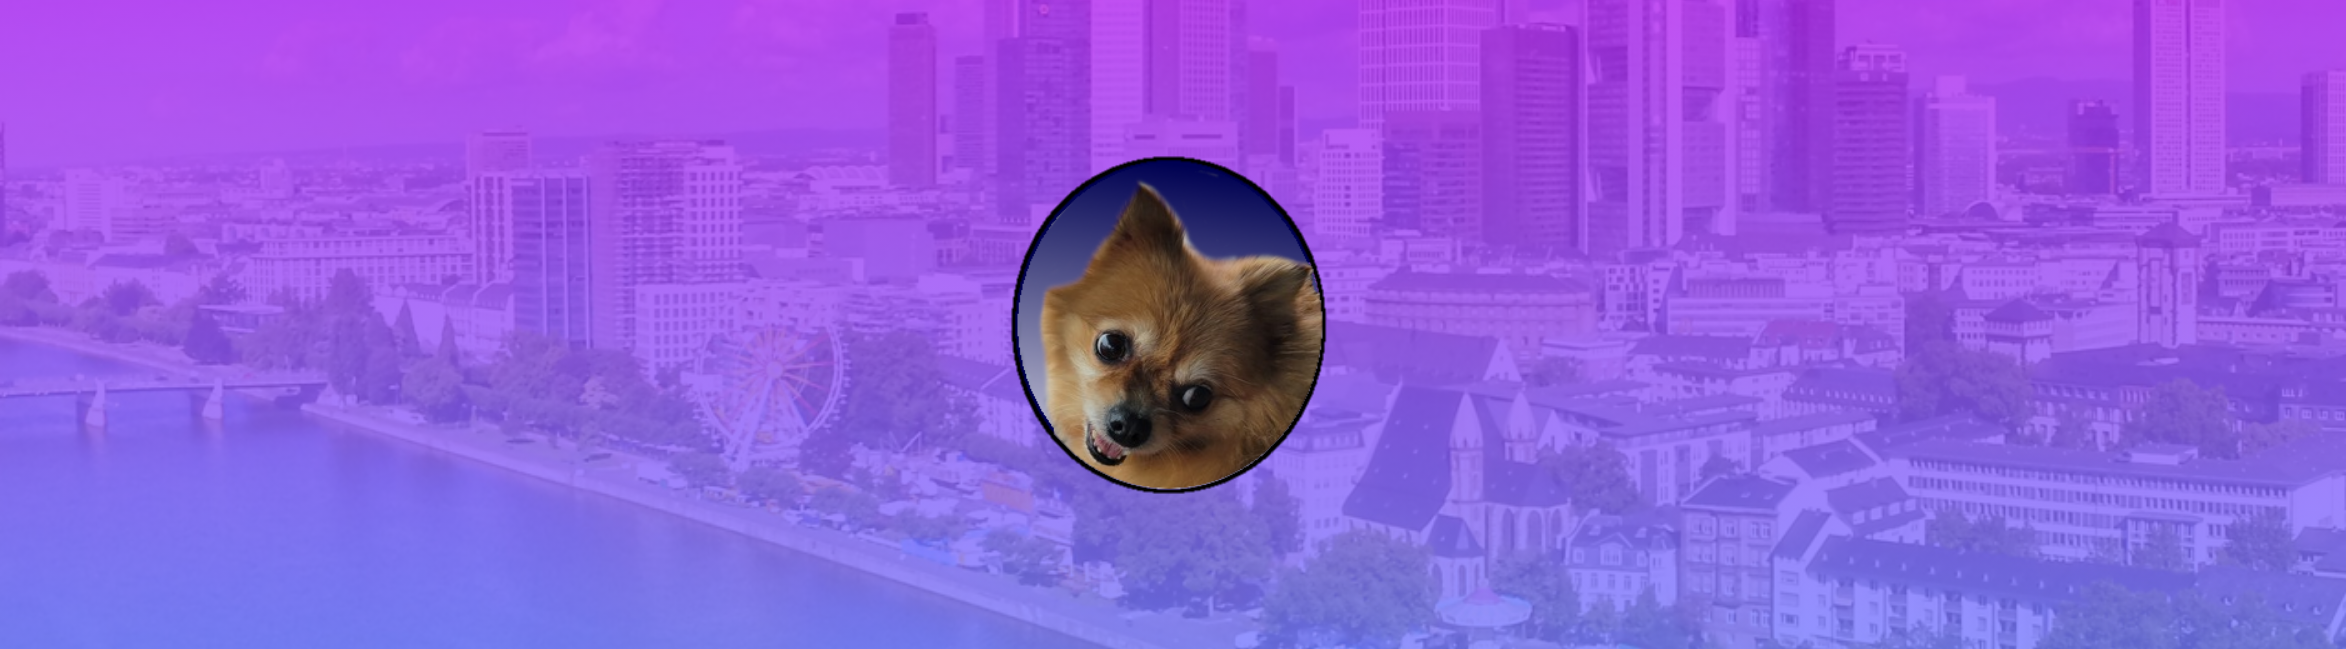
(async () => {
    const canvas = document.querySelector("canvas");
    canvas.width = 2346;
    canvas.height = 649;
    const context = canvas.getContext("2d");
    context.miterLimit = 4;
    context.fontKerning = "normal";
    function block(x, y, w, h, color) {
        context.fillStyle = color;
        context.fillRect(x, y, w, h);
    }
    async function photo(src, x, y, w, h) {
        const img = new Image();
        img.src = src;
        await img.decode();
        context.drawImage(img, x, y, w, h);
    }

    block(0, 0, 2346, 649, "rgb(255, 255, 255)");
    await photo("media/1.png", 0, 0, 2346, 649);
    await photo("media/2.png", 1011, 156, 316, 338);
})();
